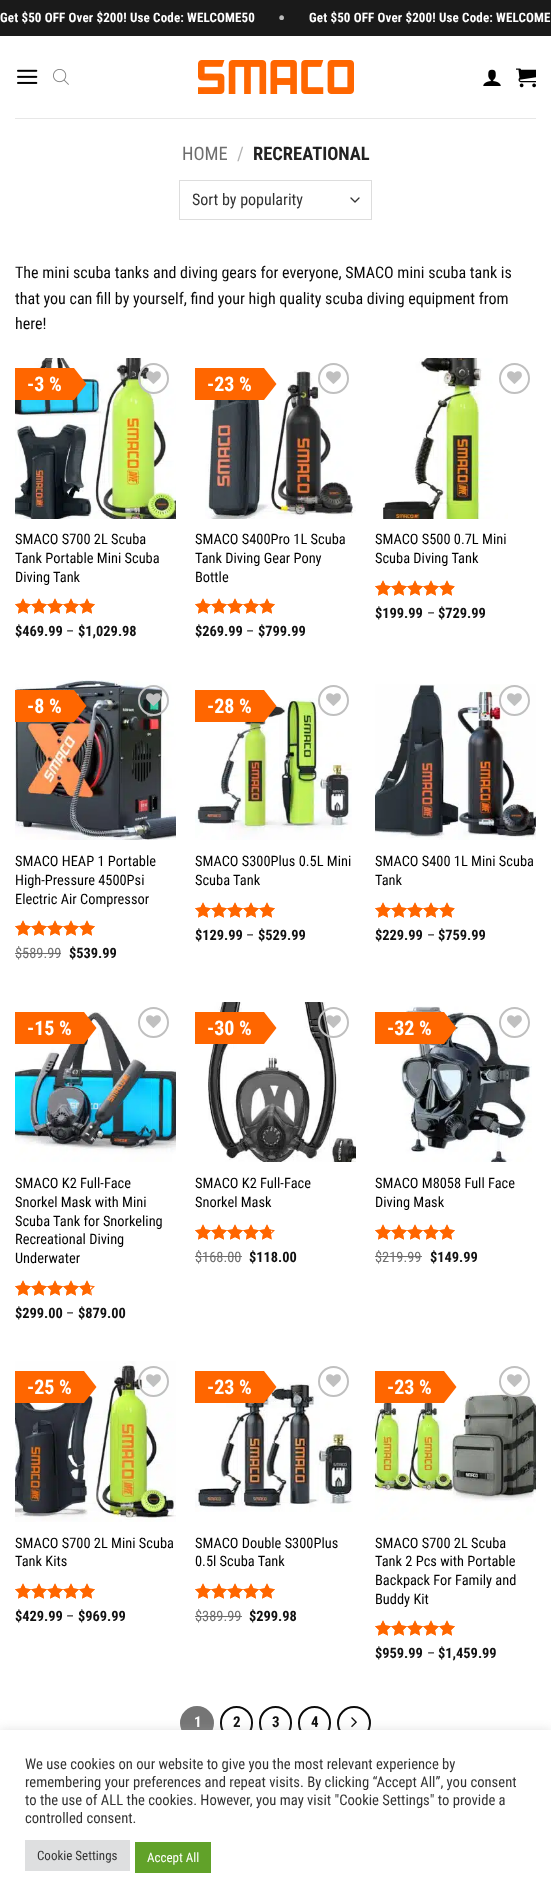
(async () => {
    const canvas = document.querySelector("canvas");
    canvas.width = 551;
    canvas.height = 1903;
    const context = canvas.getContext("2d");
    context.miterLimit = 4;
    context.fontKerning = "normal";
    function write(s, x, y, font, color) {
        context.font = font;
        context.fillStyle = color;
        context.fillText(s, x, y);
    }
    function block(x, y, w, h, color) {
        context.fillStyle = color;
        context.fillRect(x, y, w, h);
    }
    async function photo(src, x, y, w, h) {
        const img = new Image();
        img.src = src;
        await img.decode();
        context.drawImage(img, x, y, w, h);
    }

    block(0, 0, 551, 1903, "rgb(255, 255, 255)");
    block(0, 0, 551, 36, "rgb(26, 26, 26)");
    context.letterSpacing = "0.15px";
    write("Get $50 OFF Over $200! Use Code: WELCOME50", 0, 22, "bold 13px Roboto Condensed", "rgb(255, 255, 255)");
    context.letterSpacing = "0px";
    write("•", 278, 25, "bold 20px Roboto Condensed", "rgb(186, 186, 186)");
    context.letterSpacing = "0.15px";
    write("Get $50 OFF Over $200! Use Code: WELCOME", 309, 22, "bold 13px Roboto Condensed", "rgb(255, 255, 255)");
    await photo("media/1.png", 17, 69, 21, 15);
    await photo("media/2.png", 53, 69, 16, 16);
    await photo("media/3.png", 198, 60, 156, 34);
    await photo("media/4.png", 483, 69, 18, 17);
    await photo("media/5.png", 516, 68, 20, 20);
    block(15, 118, 521, 1, "rgb(231, 231, 231)");
    context.letterSpacing = "0px";
    write("HOME", 182, 160, "18.5px Roboto Condensed", "rgb(110, 110, 110)");
    write("/", 237, 160, "18.5px Roboto Condensed", "rgb(178, 178, 178)");
    write("RECREATIONAL", 253, 160, "bold 18.5px Roboto Condensed", "rgb(34, 34, 34)");
    context.beginPath();
    context.moveTo(351, 198);
    context.lineTo(355, 202);
    context.lineTo(359, 198);
    context.strokeStyle = "rgb(51, 51, 51)";
    context.lineWidth = 1.3;
    context.lineCap = "round";
    context.lineJoin = "round";
    context.stroke();
    context.strokeStyle = "rgb(221, 221, 221)";
    context.lineWidth = 1;
    context.lineJoin = "miter";
    context.strokeRect(179.5, 180.5, 192, 39);
    write("Sort by popularity", 192, 205, "16px Roboto Condensed", "rgb(51, 51, 51)");
    write("The mini scuba tanks and diving gears for everyone, SMACO mini scuba tank is", 15, 278, "16px Roboto Condensed", "rgb(10, 10, 10)");
    write("that you can fill by yourself, find your high quality scuba diving equipment from", 15, 304, "16px Roboto Condensed", "rgb(10, 10, 10)");
    write("here!", 15, 329, "16px Roboto Condensed", "rgb(10, 10, 10)");
    await photo("media/6.png", 15, 358, 161, 161);
    block(15, 368, 59, 32, "rgb(255, 102, 0)");
    write("-3 %", 27, 391, "bold 20px Roboto Condensed", "rgb(255, 255, 255)");
    context.fillStyle = "rgb(255, 102, 0)";
    context.beginPath();
    context.moveTo(74, 368);
    context.lineTo(74, 400);
    context.lineTo(86.5, 384);
    context.closePath();
    context.fill();
    context.beginPath();
    context.arc(153.5, 378.5, 14.5, 0, Math.PI * 2);
    context.strokeStyle = "rgb(192, 192, 192)";
    context.lineWidth = 2;
    context.stroke();
    await photo("media/7.png", 146, 371, 15, 13);
    write("SMACO S700 2L Scuba", 15, 544, "14.4px Roboto Condensed", "rgb(0, 0, 0)");
    write("Tank Portable Mini Scuba", 15, 563, "14.4px Roboto Condensed", "rgb(0, 0, 0)");
    write("Diving Tank", 15, 582, "14.4px Roboto Condensed", "rgb(0, 0, 0)");
    await photo("media/8.png", 15, 598, 80, 16);
    await photo("media/9.png", 15, 598, 80, 16);
    write("$469.99", 15, 636, "bold 14.4px Roboto Condensed", "rgb(17, 17, 17)");
    write("–", 66, 636, "14.4px Roboto Condensed", "rgb(10, 10, 10)");
    write("$1,029.98", 78, 636, "bold 14.4px Roboto Condensed", "rgb(17, 17, 17)");
    await photo("media/10.png", 205, 368, 151, 151);
    block(195, 368, 69, 32, "rgb(255, 102, 0)");
    write("-23 %", 207, 391, "bold 20px Roboto Condensed", "rgb(255, 255, 255)");
    context.fillStyle = "rgb(255, 102, 0)";
    context.beginPath();
    context.moveTo(264, 368);
    context.lineTo(264, 400);
    context.lineTo(276.5, 384);
    context.closePath();
    context.fill();
    context.beginPath();
    context.arc(333.5, 378.5, 14.5, 0, Math.PI * 2);
    context.stroke();
    await photo("media/11.png", 326, 371, 15, 13);
    write("SMACO S400Pro 1L Scuba", 195, 544, "14.4px Roboto Condensed", "rgb(0, 0, 0)");
    write("Tank Diving Gear Pony", 195, 563, "14.4px Roboto Condensed", "rgb(0, 0, 0)");
    write("Bottle", 195, 582, "14.4px Roboto Condensed", "rgb(0, 0, 0)");
    await photo("media/8.png", 195, 598, 80, 16);
    await photo("media/9.png", 195, 598, 80, 16);
    write("$269.99", 195, 636, "bold 14.4px Roboto Condensed", "rgb(17, 17, 17)");
    write("–", 246, 636, "14.4px Roboto Condensed", "rgb(10, 10, 10)");
    write("$799.99", 258, 636, "bold 14.4px Roboto Condensed", "rgb(17, 17, 17)");
    await photo("media/12.png", 383, 358, 125, 161);
    context.beginPath();
    context.arc(514.5, 378.5, 14.5, 0, Math.PI * 2);
    context.stroke();
    await photo("media/11.png", 507, 371, 15, 13);
    write("SMACO S500 0.7L Mini", 375, 544, "14.4px Roboto Condensed", "rgb(0, 0, 0)");
    write("Scuba Diving Tank", 375, 563, "14.4px Roboto Condensed", "rgb(0, 0, 0)");
    await photo("media/8.png", 375, 580, 80, 16);
    await photo("media/13.png", 375, 580, 79, 16);
    write("$199.99", 375, 618, "bold 14.4px Roboto Condensed", "rgb(17, 17, 17)");
    write("–", 427, 618, "14.4px Roboto Condensed", "rgb(10, 10, 10)");
    write("$729.99", 438, 618, "bold 14.4px Roboto Condensed", "rgb(17, 17, 17)");
    await photo("media/14.png", 15, 680, 161, 160);
    block(15, 690, 59, 32, "rgb(255, 102, 0)");
    write("-8 %", 27, 713, "bold 20px Roboto Condensed", "rgb(255, 255, 255)");
    context.fillStyle = "rgb(255, 102, 0)";
    context.beginPath();
    context.moveTo(74, 690);
    context.lineTo(74, 722);
    context.lineTo(86.5, 706);
    context.closePath();
    context.fill();
    context.beginPath();
    context.arc(153.5, 700.5, 14.5, 0, Math.PI * 2);
    context.stroke();
    await photo("media/15.png", 146, 693, 15, 13);
    write("SMACO HEAP 1 Portable", 15, 866, "14.4px Roboto Condensed", "rgb(0, 0, 0)");
    write("High-Pressure 4500Psi", 15, 885, "14.4px Roboto Condensed", "rgb(0, 0, 0)");
    write("Electric Air Compressor", 15, 904, "14.4px Roboto Condensed", "rgb(0, 0, 0)");
    await photo("media/8.png", 15, 920, 80, 16);
    await photo("media/9.png", 15, 920, 80, 16);
    write("$589.99", 15, 958, "14.4px Roboto Condensed", "rgb(110, 110, 110)");
    block(15, 953, 46, 1, "rgb(108, 108, 108)");
    write("$539.99", 69, 958, "bold 14.4px Roboto Condensed", "rgb(17, 17, 17)");
    await photo("media/16.png", 195, 698, 157, 142);
    block(195, 690, 69, 32, "rgb(255, 102, 0)");
    write("-28 %", 207, 713, "bold 20px Roboto Condensed", "rgb(255, 255, 255)");
    context.fillStyle = "rgb(255, 102, 0)";
    context.beginPath();
    context.moveTo(264, 690);
    context.lineTo(264, 722);
    context.lineTo(276.5, 706);
    context.closePath();
    context.fill();
    context.beginPath();
    context.arc(333.5, 700.5, 14.5, 0, Math.PI * 2);
    context.stroke();
    await photo("media/17.png", 326, 693, 15, 13);
    write("SMACO S300Plus 0.5L Mini", 195, 866, "14.4px Roboto Condensed", "rgb(0, 0, 0)");
    write("Scuba Tank", 195, 885, "14.4px Roboto Condensed", "rgb(0, 0, 0)");
    await photo("media/8.png", 195, 902, 80, 16);
    await photo("media/9.png", 195, 902, 80, 16);
    write("$129.99", 195, 940, "bold 14.4px Roboto Condensed", "rgb(17, 17, 17)");
    write("–", 246, 940, "14.4px Roboto Condensed", "rgb(10, 10, 10)");
    write("$529.99", 258, 940, "bold 14.4px Roboto Condensed", "rgb(17, 17, 17)");
    await photo("media/18.png", 375, 684, 161, 156);
    context.beginPath();
    context.arc(514.5, 700.5, 14.5, 0, Math.PI * 2);
    context.stroke();
    await photo("media/19.png", 507, 693, 15, 13);
    write("SMACO S400 1L Mini Scuba", 375, 866, "14.4px Roboto Condensed", "rgb(0, 0, 0)");
    write("Tank", 375, 885, "14.4px Roboto Condensed", "rgb(0, 0, 0)");
    await photo("media/8.png", 375, 902, 80, 16);
    await photo("media/13.png", 375, 902, 79, 16);
    write("$229.99", 375, 940, "bold 14.4px Roboto Condensed", "rgb(17, 17, 17)");
    write("–", 427, 940, "14.4px Roboto Condensed", "rgb(10, 10, 10)");
    write("$759.99", 438, 940, "bold 14.4px Roboto Condensed", "rgb(17, 17, 17)");
    await photo("media/20.png", 15, 1012, 161, 150);
    block(15, 1012, 69, 32, "rgb(255, 102, 0)");
    write("-15 %", 27, 1035, "bold 20px Roboto Condensed", "rgb(255, 255, 255)");
    context.fillStyle = "rgb(255, 102, 0)";
    context.beginPath();
    context.moveTo(84, 1012);
    context.lineTo(84, 1044);
    context.lineTo(96.5, 1028);
    context.closePath();
    context.fill();
    context.beginPath();
    context.arc(153.5, 1022.5, 14.5, 0, Math.PI * 2);
    context.stroke();
    await photo("media/11.png", 146, 1015, 15, 13);
    write("SMACO K2 Full-Face", 15, 1188, "14.4px Roboto Condensed", "rgb(0, 0, 0)");
    write("Snorkel Mask with Mini", 15, 1207, "14.4px Roboto Condensed", "rgb(0, 0, 0)");
    write("Scuba Tank for Snorkeling", 15, 1226, "14.4px Roboto Condensed", "rgb(0, 0, 0)");
    write("Recreational Diving", 15, 1244, "14.4px Roboto Condensed", "rgb(0, 0, 0)");
    write("Underwater", 15, 1263, "14.4px Roboto Condensed", "rgb(0, 0, 0)");
    await photo("media/8.png", 15, 1280, 80, 16);
    await photo("media/21.png", 15, 1280, 75, 16);
    write("$299.00", 15, 1318, "bold 14.4px Roboto Condensed", "rgb(17, 17, 17)");
    write("–", 66, 1318, "14.4px Roboto Condensed", "rgb(10, 10, 10)");
    write("$879.00", 78, 1318, "bold 14.4px Roboto Condensed", "rgb(17, 17, 17)");
    await photo("media/22.png", 208, 1002, 148, 160);
    block(195, 1012, 69, 32, "rgb(255, 102, 0)");
    write("-30 %", 207, 1035, "bold 20px Roboto Condensed", "rgb(255, 255, 255)");
    context.fillStyle = "rgb(255, 102, 0)";
    context.beginPath();
    context.moveTo(264, 1012);
    context.lineTo(264, 1044);
    context.lineTo(276.5, 1028);
    context.closePath();
    context.fill();
    context.beginPath();
    context.arc(333.5, 1022.5, 14.5, 0, Math.PI * 2);
    context.stroke();
    await photo("media/23.png", 326, 1015, 15, 13);
    write("SMACO K2 Full-Face", 195, 1188, "14.4px Roboto Condensed", "rgb(0, 0, 0)");
    write("Snorkel Mask", 195, 1207, "14.4px Roboto Condensed", "rgb(0, 0, 0)");
    await photo("media/8.png", 195, 1224, 80, 16);
    await photo("media/24.png", 195, 1224, 76, 16);
    write("$168.00", 195, 1262, "14.4px Roboto Condensed", "rgb(110, 110, 110)");
    block(195, 1256, 47, 1, "rgb(108, 108, 108)");
    write("$118.00", 249, 1262, "bold 14.4px Roboto Condensed", "rgb(17, 17, 17)");
    await photo("media/25.png", 400, 1006, 132, 156);
    block(375, 1012, 69, 32, "rgb(255, 102, 0)");
    write("-32 %", 387, 1035, "bold 20px Roboto Condensed", "rgb(255, 255, 255)");
    context.fillStyle = "rgb(255, 102, 0)";
    context.beginPath();
    context.moveTo(444, 1012);
    context.lineTo(444, 1044);
    context.lineTo(456.5, 1028);
    context.closePath();
    context.fill();
    context.beginPath();
    context.arc(514.5, 1022.5, 14.5, 0, Math.PI * 2);
    context.stroke();
    await photo("media/11.png", 507, 1015, 15, 13);
    write("SMACO M8058 Full Face", 375, 1188, "14.4px Roboto Condensed", "rgb(0, 0, 0)");
    write("Diving Mask", 375, 1207, "14.4px Roboto Condensed", "rgb(0, 0, 0)");
    await photo("media/8.png", 375, 1224, 80, 16);
    await photo("media/9.png", 375, 1224, 80, 16);
    write("$219.99", 375, 1262, "14.4px Roboto Condensed", "rgb(110, 110, 110)");
    block(375, 1256, 47, 1, "rgb(108, 108, 108)");
    write("$149.99", 430, 1262, "bold 14.4px Roboto Condensed", "rgb(17, 17, 17)");
    await photo("media/26.png", 15, 1361, 161, 161);
    block(15, 1371, 69, 32, "rgb(255, 102, 0)");
    write("-25 %", 27, 1394, "bold 20px Roboto Condensed", "rgb(255, 255, 255)");
    context.fillStyle = "rgb(255, 102, 0)";
    context.beginPath();
    context.moveTo(84, 1371);
    context.lineTo(84, 1403);
    context.lineTo(96.5, 1387);
    context.closePath();
    context.fill();
    context.beginPath();
    context.arc(153.5, 1381.5, 14.5, 0, Math.PI * 2);
    context.stroke();
    await photo("media/27.png", 146, 1374, 15, 13);
    write("SMACO S700 2L Mini Scuba", 15, 1548, "14.4px Roboto Condensed", "rgb(0, 0, 0)");
    write("Tank Kits", 15, 1566, "14.4px Roboto Condensed", "rgb(0, 0, 0)");
    await photo("media/8.png", 15, 1583, 80, 16);
    await photo("media/9.png", 15, 1583, 80, 16);
    write("$429.99", 15, 1621, "bold 14.4px Roboto Condensed", "rgb(17, 17, 17)");
    write("–", 66, 1621, "14.4px Roboto Condensed", "rgb(10, 10, 10)");
    write("$969.99", 78, 1621, "bold 14.4px Roboto Condensed", "rgb(17, 17, 17)");
    await photo("media/28.png", 195, 1382, 158, 130);
    block(195, 1371, 69, 32, "rgb(255, 102, 0)");
    write("-23 %", 207, 1394, "bold 20px Roboto Condensed", "rgb(255, 255, 255)");
    context.fillStyle = "rgb(255, 102, 0)";
    context.beginPath();
    context.moveTo(264, 1371);
    context.lineTo(264, 1403);
    context.lineTo(276.5, 1387);
    context.closePath();
    context.fill();
    context.beginPath();
    context.arc(333.5, 1381.5, 14.5, 0, Math.PI * 2);
    context.stroke();
    await photo("media/11.png", 326, 1374, 15, 13);
    write("SMACO Double S300Plus", 195, 1548, "14.4px Roboto Condensed", "rgb(0, 0, 0)");
    write("0.5l Scuba Tank", 195, 1566, "14.4px Roboto Condensed", "rgb(0, 0, 0)");
    await photo("media/8.png", 195, 1583, 80, 16);
    await photo("media/9.png", 195, 1583, 80, 16);
    write("$389.99", 195, 1621, "14.4px Roboto Condensed", "rgb(110, 110, 110)");
    block(195, 1616, 47, 1, "rgb(108, 108, 108)");
    write("$299.98", 249, 1621, "bold 14.4px Roboto Condensed", "rgb(17, 17, 17)");
    await photo("media/29.png", 375, 1391, 161, 129);
    block(375, 1371, 69, 32, "rgb(255, 102, 0)");
    write("-23 %", 387, 1394, "bold 20px Roboto Condensed", "rgb(255, 255, 255)");
    context.fillStyle = "rgb(255, 102, 0)";
    context.beginPath();
    context.moveTo(444, 1371);
    context.lineTo(444, 1403);
    context.lineTo(456.5, 1387);
    context.closePath();
    context.fill();
    context.beginPath();
    context.arc(514.5, 1381.5, 14.5, 0, Math.PI * 2);
    context.stroke();
    await photo("media/11.png", 507, 1374, 15, 13);
    write("SMACO S700 2L Scuba", 375, 1548, "14.4px Roboto Condensed", "rgb(0, 0, 0)");
    write("Tank 2 Pcs with Portable", 375, 1566, "14.4px Roboto Condensed", "rgb(0, 0, 0)");
    write("Backpack For Family and", 375, 1585, "14.4px Roboto Condensed", "rgb(0, 0, 0)");
    write("Buddy Kit", 375, 1604, "14.4px Roboto Condensed", "rgb(0, 0, 0)");
    await photo("media/8.png", 375, 1620, 80, 16);
    await photo("media/9.png", 375, 1620, 80, 16);
    write("$959.99", 375, 1658, "bold 14.4px Roboto Condensed", "rgb(17, 17, 17)");
    write("–", 427, 1658, "14.4px Roboto Condensed", "rgb(10, 10, 10)");
    write("$1,459.99", 438, 1658, "bold 14.4px Roboto Condensed", "rgb(17, 17, 17)");
    context.fillStyle = "rgb(117, 117, 117)";
    context.beginPath();
    context.arc(197, 1723, 16, 0, Math.PI * 2);
    context.fill();
    context.strokeStyle = "rgb(117, 117, 117)";
    context.stroke();
    write("1", 194, 1727, "bold 15px Roboto Condensed", "rgb(255, 255, 255)");
    context.beginPath();
    context.roundRect(221, 1707, 31, 32, 15.5);
    context.strokeStyle = "rgb(10, 10, 10)";
    context.stroke();
    write("2", 233, 1727, "bold 15px Roboto Condensed", "rgb(10, 10, 10)");
    context.beginPath();
    context.roundRect(260, 1707, 31, 32, 15.5);
    context.stroke();
    write("3", 272, 1727, "bold 15px Roboto Condensed", "rgb(10, 10, 10)");
    context.beginPath();
    context.roundRect(299, 1707, 31, 32, 15.5);
    context.stroke();
    write("4", 311, 1727, "bold 15px Roboto Condensed", "rgb(10, 10, 10)");
    context.beginPath();
    context.arc(354, 1723, 16, 0, Math.PI * 2);
    context.stroke();
    await photo("media/30.png", 351, 1717, 6, 11);
    context.fillStyle = "rgba(172, 171, 171, 0.3)";
    context.filter = "blur(5px)";
    context.beginPath();
    context.rect(0, 1729, 551, 173);
    context.fill();
    context.filter = "none";
    block(0, 1730, 551, 173, "rgb(255, 255, 255)");
    write("We use cookies on our website to give you the most relevant experience by", 25, 1769, "14.65px Roboto Condensed", "rgb(51, 51, 51)");
    write("remembering your preferences and repeat visits. By clicking “Accept All”, you consent", 25, 1787, "14.65px Roboto Condensed", "rgb(51, 51, 51)");
    write("to the use of ALL the cookies. However, you may visit \"Cookie Settings\" to provide a", 25, 1805, "14.65px Roboto Condensed", "rgb(51, 51, 51)");
    write("controlled consent.", 25, 1823, "14.65px Roboto Condensed", "rgb(51, 51, 51)");
    block(25, 1840, 105, 31, "rgb(222, 223, 224)");
    write("Cookie Settings", 37, 1860, "13px Roboto Condensed", "rgb(51, 51, 51)");
    block(135, 1842, 76, 31, "rgb(97, 162, 41)");
    write("Accept All", 147, 1862, "13px Roboto Condensed", "rgb(255, 255, 255)");
})();
